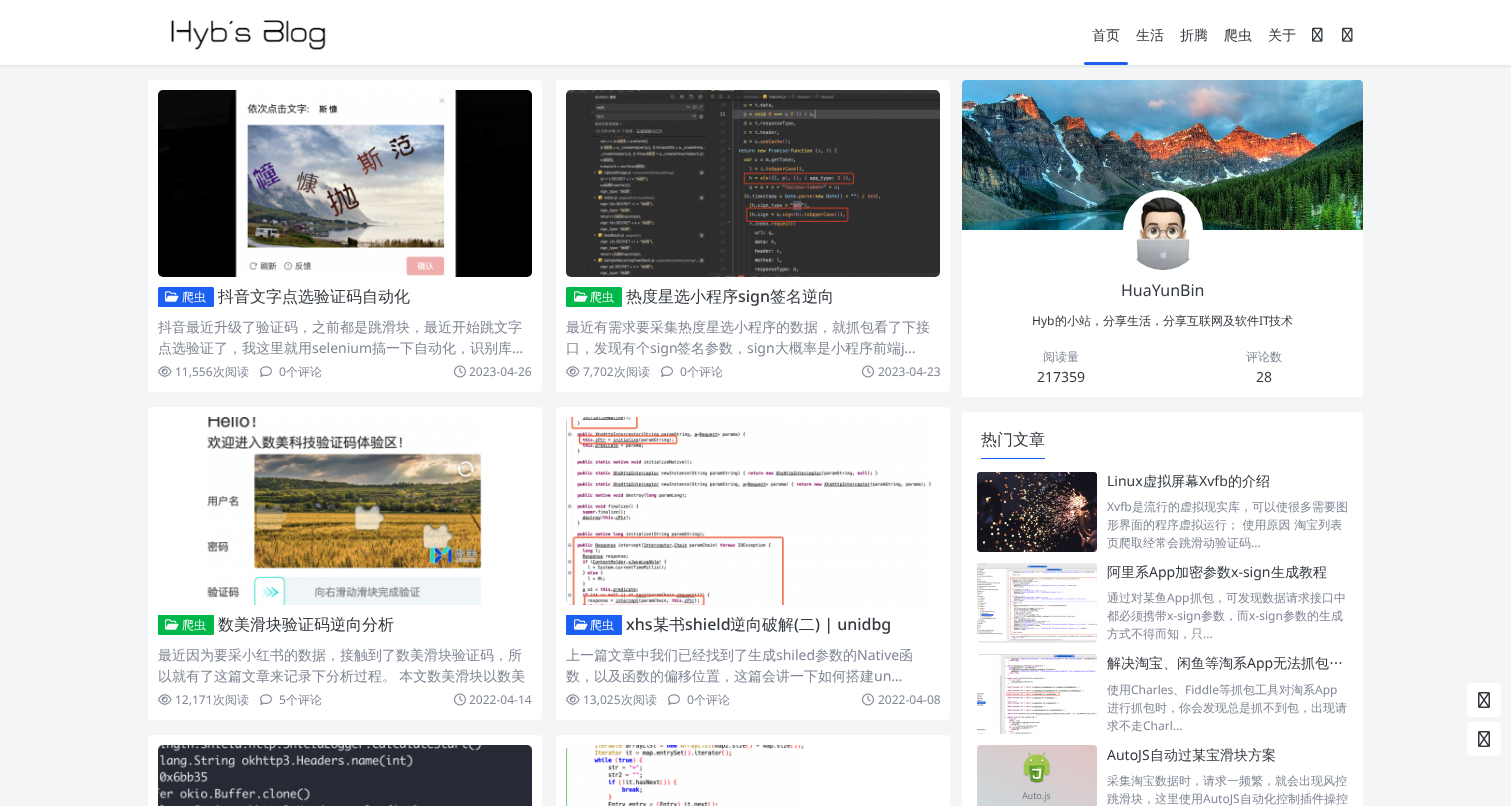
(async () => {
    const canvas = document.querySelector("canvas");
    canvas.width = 1511;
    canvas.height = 806;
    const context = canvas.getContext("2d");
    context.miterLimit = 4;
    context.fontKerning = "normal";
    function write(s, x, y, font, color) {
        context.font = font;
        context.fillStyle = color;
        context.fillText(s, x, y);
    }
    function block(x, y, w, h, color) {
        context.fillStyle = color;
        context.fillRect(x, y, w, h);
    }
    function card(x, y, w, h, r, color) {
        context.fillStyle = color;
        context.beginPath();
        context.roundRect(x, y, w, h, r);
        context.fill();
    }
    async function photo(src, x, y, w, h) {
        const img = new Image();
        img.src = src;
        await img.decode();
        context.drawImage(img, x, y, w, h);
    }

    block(0, 0, 1511, 806, "rgb(243, 245, 247)");
    block(0, 0, 1511, 65, "rgb(255, 255, 255)");
    context.save();
    context.beginPath();
    context.rect(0, 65, 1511, 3);
    context.clip();
    context.fillStyle = "rgba(0, 0, 0, 0.07)";
    context.filter = "blur(2px)";
    context.beginPath();
    context.rect(0, 2, 1511, 65);
    context.fill();
    context.filter = "none";
    context.restore();
    await photo("media/1.png", 171, 20, 155, 30);
    write("首页", 1092, 40, "500 14px WenQuanYi Zen Hei", "rgb(52, 58, 64)");
    card(1084, 62, 44, 3, 1.5, "rgb(28, 96, 243)");
    write("生活", 1136, 40, "500 14px WenQuanYi Zen Hei", "rgb(52, 58, 64)");
    write("折腾", 1180, 40, "500 14px WenQuanYi Zen Hei", "rgb(52, 58, 64)");
    write("爬虫", 1224, 40, "500 14px WenQuanYi Zen Hei", "rgb(52, 58, 64)");
    write("关于", 1268, 40, "500 14px WenQuanYi Zen Hei", "rgb(52, 58, 64)");
    await photo("media/2.png", 1312, 27, 11, 15);
    await photo("media/2.png", 1342, 27, 11, 15);
    card(148, 80, 394, 312, 4, "rgb(255, 255, 255)");
    await photo("media/3.png", 158, 90, 374, 187);
    card(158, 287, 56, 20, 1.5, "rgb(28, 96, 243)");
    await photo("media/4.png", 165, 291, 14, 11);
    write("爬虫", 182, 301, "500 12px WenQuanYi Zen Hei", "rgb(248, 249, 250)");
    write("抖音文字点选验证码自动化", 218, 302, "500 16px WenQuanYi Zen Hei", "rgb(52, 58, 64)");
    context.save();
    context.beginPath();
    context.rect(158, 316, 374, 42);
    context.clip();
    write("抖音最近升级了验证码，之前都是跳滑块，最近开始跳文字", 158, 332, "500 14px WenQuanYi Zen Hei", "rgb(128, 134, 149)");
    context.restore();
    write("点选验证了，我这里就用", 158, 353, "500 14px WenQuanYi Zen Hei", "rgb(128, 134, 149)");
    write("selenium", 312, 353, "14px Noto Sans", "rgb(128, 134, 149)");
    write("搞一下自动化，识别库", 372, 353, "500 14px WenQuanYi Zen Hei", "rgb(128, 134, 149)");
    write("…", 512, 353, "14px Noto Sans", "rgb(128, 134, 149)");
    await photo("media/5.png", 158, 366, 14, 11);
    write("11,556", 175, 376, "12px Noto Sans", "rgb(128, 134, 149)");
    write("次阅读", 213, 376, "500 12px WenQuanYi Zen Hei", "rgb(128, 134, 149)");
    await photo("media/6.png", 260, 366, 12, 11);
    write("0", 279, 376, "12px Noto Sans", "rgb(128, 134, 149)");
    write("个评论", 286, 376, "500 12px WenQuanYi Zen Hei", "rgb(128, 134, 149)");
    await photo("media/7.png", 454, 365, 12, 13);
    write("2023-04-26", 469, 376, "12px Noto Sans", "rgb(128, 134, 149)");
    card(556, 80, 394, 312, 4, "rgb(255, 255, 255)");
    await photo("media/8.png", 566, 90, 374, 187);
    card(566, 287, 56, 20, 1.5, "rgb(0, 183, 74)");
    await photo("media/9.png", 574, 291, 14, 11);
    write("爬虫", 590, 301, "500 12px WenQuanYi Zen Hei", "rgb(248, 249, 250)");
    write("热度星选小程序", 626, 302, "500 16px WenQuanYi Zen Hei", "rgb(52, 58, 64)");
    write("sign", 738, 302, "500 16px Noto Sans", "rgb(52, 58, 64)");
    write("签名逆向", 770, 302, "500 16px WenQuanYi Zen Hei", "rgb(52, 58, 64)");
    write("最近有需求要采集热度星选小程序的数据，就抓包看了下接", 566, 332, "500 14px WenQuanYi Zen Hei", "rgb(128, 134, 149)");
    write("口，发现有个", 566, 353, "500 14px WenQuanYi Zen Hei", "rgb(128, 134, 149)");
    write("sign", 650, 353, "14px Noto Sans", "rgb(128, 134, 149)");
    write("签名参数，", 677, 353, "500 14px WenQuanYi Zen Hei", "rgb(128, 134, 149)");
    write("sign", 747, 353, "14px Noto Sans", "rgb(128, 134, 149)");
    write("大概率是小程序前端", 775, 353, "500 14px WenQuanYi Zen Hei", "rgb(128, 134, 149)");
    write("j…", 901, 353, "14px Noto Sans", "rgb(128, 134, 149)");
    await photo("media/5.png", 566, 366, 14, 11);
    write("7,702", 583, 376, "12px Noto Sans", "rgb(128, 134, 149)");
    write("次阅读", 614, 376, "500 12px WenQuanYi Zen Hei", "rgb(128, 134, 149)");
    await photo("media/6.png", 661, 366, 12, 11);
    write("0", 680, 376, "12px Noto Sans", "rgb(128, 134, 149)");
    write("个评论", 687, 376, "500 12px WenQuanYi Zen Hei", "rgb(128, 134, 149)");
    await photo("media/7.png", 862, 365, 12, 13);
    write("2023-04-23", 878, 376, "12px Noto Sans", "rgb(128, 134, 149)");
    card(148, 407, 394, 313, 4, "rgb(255, 255, 255)");
    await photo("media/10.png", 207, 417, 275, 188);
    context.save();
    context.beginPath();
    context.rect(158, 615, 374, 21);
    context.clip();
    card(158, 614, 56, 21, 1.5, "rgb(0, 183, 74)");
    context.restore();
    await photo("media/9.png", 165, 619, 14, 11);
    write("爬虫", 182, 629, "500 12px WenQuanYi Zen Hei", "rgb(248, 249, 250)");
    write("数美滑块验证码逆向分析", 218, 630, "500 16px WenQuanYi Zen Hei", "rgb(52, 58, 64)");
    write("最近因为要采小红书的数据，接触到了数美滑块验证码，所", 158, 660, "500 14px WenQuanYi Zen Hei", "rgb(128, 134, 149)");
    context.wordSpacing = "-1px";
    write("以就有了这篇文章来记录下分析过程。 本文数美滑块以数美", 158, 681, "500 14px WenQuanYi Zen Hei", "rgb(128, 134, 149)");
    await photo("media/5.png", 158, 694, 14, 11);
    context.wordSpacing = "0px";
    write("12,171", 175, 704, "12px Noto Sans", "rgb(128, 134, 149)");
    write("次阅读", 213, 704, "500 12px WenQuanYi Zen Hei", "rgb(128, 134, 149)");
    await photo("media/6.png", 260, 694, 12, 11);
    write("5", 279, 704, "12px Noto Sans", "rgb(128, 134, 149)");
    write("个评论", 286, 704, "500 12px WenQuanYi Zen Hei", "rgb(128, 134, 149)");
    await photo("media/7.png", 454, 693, 12, 13);
    write("2022-04-14", 469, 704, "12px Noto Sans", "rgb(128, 134, 149)");
    card(556, 407, 394, 313, 4, "rgb(255, 255, 255)");
    await photo("media/11.png", 566, 417, 366, 188);
    write("xhs", 626, 630, "500 16px Noto Sans", "rgb(52, 58, 64)");
    write("某书", 653, 630, "500 16px WenQuanYi Zen Hei", "rgb(52, 58, 64)");
    write("shield", 685, 630, "500 16px Noto Sans", "rgb(52, 58, 64)");
    write("逆向破解 二", 730, 630, "500 16px WenQuanYi Zen Hei", "rgb(52, 58, 64)");
    write(") | unidbg", 815, 630, "500 16px Noto Sans", "rgb(52, 58, 64)");
    context.save();
    context.beginPath();
    context.rect(566, 615, 374, 21);
    context.clip();
    card(566, 614, 56, 21, 1.5, "rgb(28, 96, 243)");
    context.restore();
    await photo("media/4.png", 574, 619, 14, 11);
    write("爬虫", 590, 629, "500 12px WenQuanYi Zen Hei", "rgb(248, 249, 250)");
    write("(", 794, 630, "500 16px Noto Sans", "rgb(52, 58, 64)");
    write("上一篇文章中我们已经找到了生成", 566, 660, "500 14px WenQuanYi Zen Hei", "rgb(128, 134, 149)");
    write("shiled", 776, 660, "14px Noto Sans", "rgb(128, 134, 149)");
    write("参数的", 815, 660, "500 14px WenQuanYi Zen Hei", "rgb(128, 134, 149)");
    write("Native", 857, 660, "14px Noto Sans", "rgb(128, 134, 149)");
    write("函", 899, 660, "500 14px WenQuanYi Zen Hei", "rgb(128, 134, 149)");
    write("数，以及函数的偏移位置，这篇会讲一下如何搭建", 566, 681, "500 14px WenQuanYi Zen Hei", "rgb(128, 134, 149)");
    write("un…", 874, 681, "14px Noto Sans", "rgb(128, 134, 149)");
    await photo("media/5.png", 566, 694, 14, 11);
    write("13,025", 583, 704, "12px Noto Sans", "rgb(128, 134, 149)");
    write("次阅读", 621, 704, "500 12px WenQuanYi Zen Hei", "rgb(128, 134, 149)");
    await photo("media/6.png", 668, 694, 12, 11);
    write("0", 687, 704, "12px Noto Sans", "rgb(128, 134, 149)");
    write("个评论", 694, 704, "500 12px WenQuanYi Zen Hei", "rgb(128, 134, 149)");
    await photo("media/7.png", 862, 693, 12, 13);
    write("2022-04-08", 878, 704, "12px Noto Sans", "rgb(128, 134, 149)");
    card(148, 735, 394, 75, 4, "rgb(255, 255, 255)");
    await photo("media/12.png", 158, 745, 374, 61);
    card(556, 735, 394, 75, 4, "rgb(255, 255, 255)");
    await photo("media/13.png", 566, 745, 238, 61);
    block(962, 80, 401, 317, "rgb(255, 255, 255)");
    await photo("media/14.png", 962, 80, 401, 150);
    await photo("media/15.png", 1123, 190, 80, 80);
    write("HuaYunBin", 1121, 296, "16px Noto Sans", "rgb(52, 58, 64)");
    write("Hyb", 1032, 325, "12px Noto Sans", "rgb(52, 58, 64)");
    write("的小站，分享生活，分享互联网及软件", 1055, 325, "500 12px WenQuanYi Zen Hei", "rgb(52, 58, 64)");
    write("IT", 1259, 325, "12px Noto Sans", "rgb(52, 58, 64)");
    write("技术", 1269, 325, "500 12px WenQuanYi Zen Hei", "rgb(52, 58, 64)");
    write("阅读量", 1043, 361, "500 12px WenQuanYi Zen Hei", "rgb(128, 134, 149)");
    write("217359", 1037, 382, "14px Noto Sans", "rgb(52, 58, 64)");
    write("评论数", 1246, 361, "500 12px WenQuanYi Zen Hei", "rgb(128, 134, 149)");
    write("28", 1256, 382, "14px Noto Sans", "rgb(52, 58, 64)");
    card(962, 412, 401, 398, 4, "rgb(255, 255, 255)");
    write("热门文章", 981, 445, "500 16px WenQuanYi Zen Hei", "rgb(52, 58, 64)");
    block(981, 458, 64, 1, "rgb(28, 96, 243)");
    await photo("media/16.png", 977, 472, 120, 80);
    write("Linux", 1107, 486, "14px Noto Sans", "rgb(52, 58, 64)");
    write("虚拟屏幕", 1143, 486, "500 14px WenQuanYi Zen Hei", "rgb(52, 58, 64)");
    write("Xvfb", 1199, 486, "14px Noto Sans", "rgb(52, 58, 64)");
    write("的介绍", 1228, 486, "500 14px WenQuanYi Zen Hei", "rgb(52, 58, 64)");
    write("Xvfb", 1107, 511, "12px Noto Sans", "rgb(128, 134, 149)");
    write("是流行的虚拟现实库，可以使很多需要图", 1132, 511, "500 12px WenQuanYi Zen Hei", "rgb(128, 134, 149)");
    write("形界面的程序虚拟运行； 使用原因 淘宝列表", 1107, 529, "500 12px WenQuanYi Zen Hei", "rgb(128, 134, 149)");
    write("页爬取经常会跳滑动验证码", 1107, 547, "500 12px WenQuanYi Zen Hei", "rgb(128, 134, 149)");
    write("...", 1251, 547, "12px Noto Sans", "rgb(128, 134, 149)");
    await photo("media/17.png", 977, 563, 120, 80);
    write("阿里系", 1107, 577, "500 14px WenQuanYi Zen Hei", "rgb(52, 58, 64)");
    write("App", 1149, 577, "14px Noto Sans", "rgb(52, 58, 64)");
    write("加密参数", 1175, 577, "500 14px WenQuanYi Zen Hei", "rgb(52, 58, 64)");
    write("x-sign", 1231, 577, "14px Noto Sans", "rgb(52, 58, 64)");
    write("生成教程", 1271, 577, "500 14px WenQuanYi Zen Hei", "rgb(52, 58, 64)");
    write("通过对某鱼", 1107, 602, "500 12px WenQuanYi Zen Hei", "rgb(128, 134, 149)");
    write("App", 1167, 602, "12px Noto Sans", "rgb(128, 134, 149)");
    write("抓包，可发现数据请求接口中", 1190, 602, "500 12px WenQuanYi Zen Hei", "rgb(128, 134, 149)");
    write("都必须携带", 1107, 620, "500 12px WenQuanYi Zen Hei", "rgb(128, 134, 149)");
    write("x-sign", 1167, 620, "12px Noto Sans", "rgb(128, 134, 149)");
    write("参数，而", 1201, 620, "500 12px WenQuanYi Zen Hei", "rgb(128, 134, 149)");
    write("x-sign", 1249, 620, "12px Noto Sans", "rgb(128, 134, 149)");
    write("参数的生成", 1283, 620, "500 12px WenQuanYi Zen Hei", "rgb(128, 134, 149)");
    write("方式不得而知，只", 1107, 638, "500 12px WenQuanYi Zen Hei", "rgb(128, 134, 149)");
    write("...", 1203, 638, "12px Noto Sans", "rgb(128, 134, 149)");
    await photo("media/18.png", 977, 654, 120, 80);
    write("解决淘宝、闲鱼等淘系", 1107, 668, "500 14px WenQuanYi Zen Hei", "rgb(52, 58, 64)");
    write("App", 1247, 668, "14px Noto Sans", "rgb(52, 58, 64)");
    write("无法抓包…", 1273, 668, "500 14px WenQuanYi Zen Hei", "rgb(52, 58, 64)");
    write("使用", 1107, 694, "500 12px WenQuanYi Zen Hei", "rgb(128, 134, 149)");
    write("Charles", 1131, 694, "12px Noto Sans", "rgb(128, 134, 149)");
    write("、", 1173, 694, "500 12px WenQuanYi Zen Hei", "rgb(128, 134, 149)");
    write("Fiddle", 1185, 694, "12px Noto Sans", "rgb(128, 134, 149)");
    write("等抓包工具对淘系", 1219, 694, "500 12px WenQuanYi Zen Hei", "rgb(128, 134, 149)");
    write("App", 1315, 694, "12px Noto Sans", "rgb(128, 134, 149)");
    write("进行抓包时，你会发现总是抓不到包，出现请", 1107, 712, "500 12px WenQuanYi Zen Hei", "rgb(128, 134, 149)");
    write("求不走", 1107, 730, "500 12px WenQuanYi Zen Hei", "rgb(128, 134, 149)");
    write("Charl...", 1143, 730, "12px Noto Sans", "rgb(128, 134, 149)");
    await photo("media/19.png", 977, 745, 120, 61);
    write("AutoJS", 1107, 760, "14px Noto Sans", "rgb(52, 58, 64)");
    write("自动过某宝滑块方案", 1150, 760, "500 14px WenQuanYi Zen Hei", "rgb(52, 58, 64)");
    write("采集淘宝数据时，请求一频繁，就会出现风控", 1107, 785, "500 12px WenQuanYi Zen Hei", "rgb(128, 134, 149)");
    write("跳滑块，这里使用", 1107, 803, "500 12px WenQuanYi Zen Hei", "rgb(128, 134, 149)");
    write("AutoJS", 1203, 803, "12px Noto Sans", "rgb(128, 134, 149)");
    write("自动化控制插件操控", 1240, 803, "500 12px WenQuanYi Zen Hei", "rgb(128, 134, 149)");
    card(1467, 683, 34, 34, 4, "rgb(255, 255, 255)");
    await photo("media/20.png", 1478, 692, 12, 16);
    card(1467, 722, 34, 34, 4, "rgb(255, 255, 255)");
    await photo("media/20.png", 1478, 731, 12, 16);
})();
